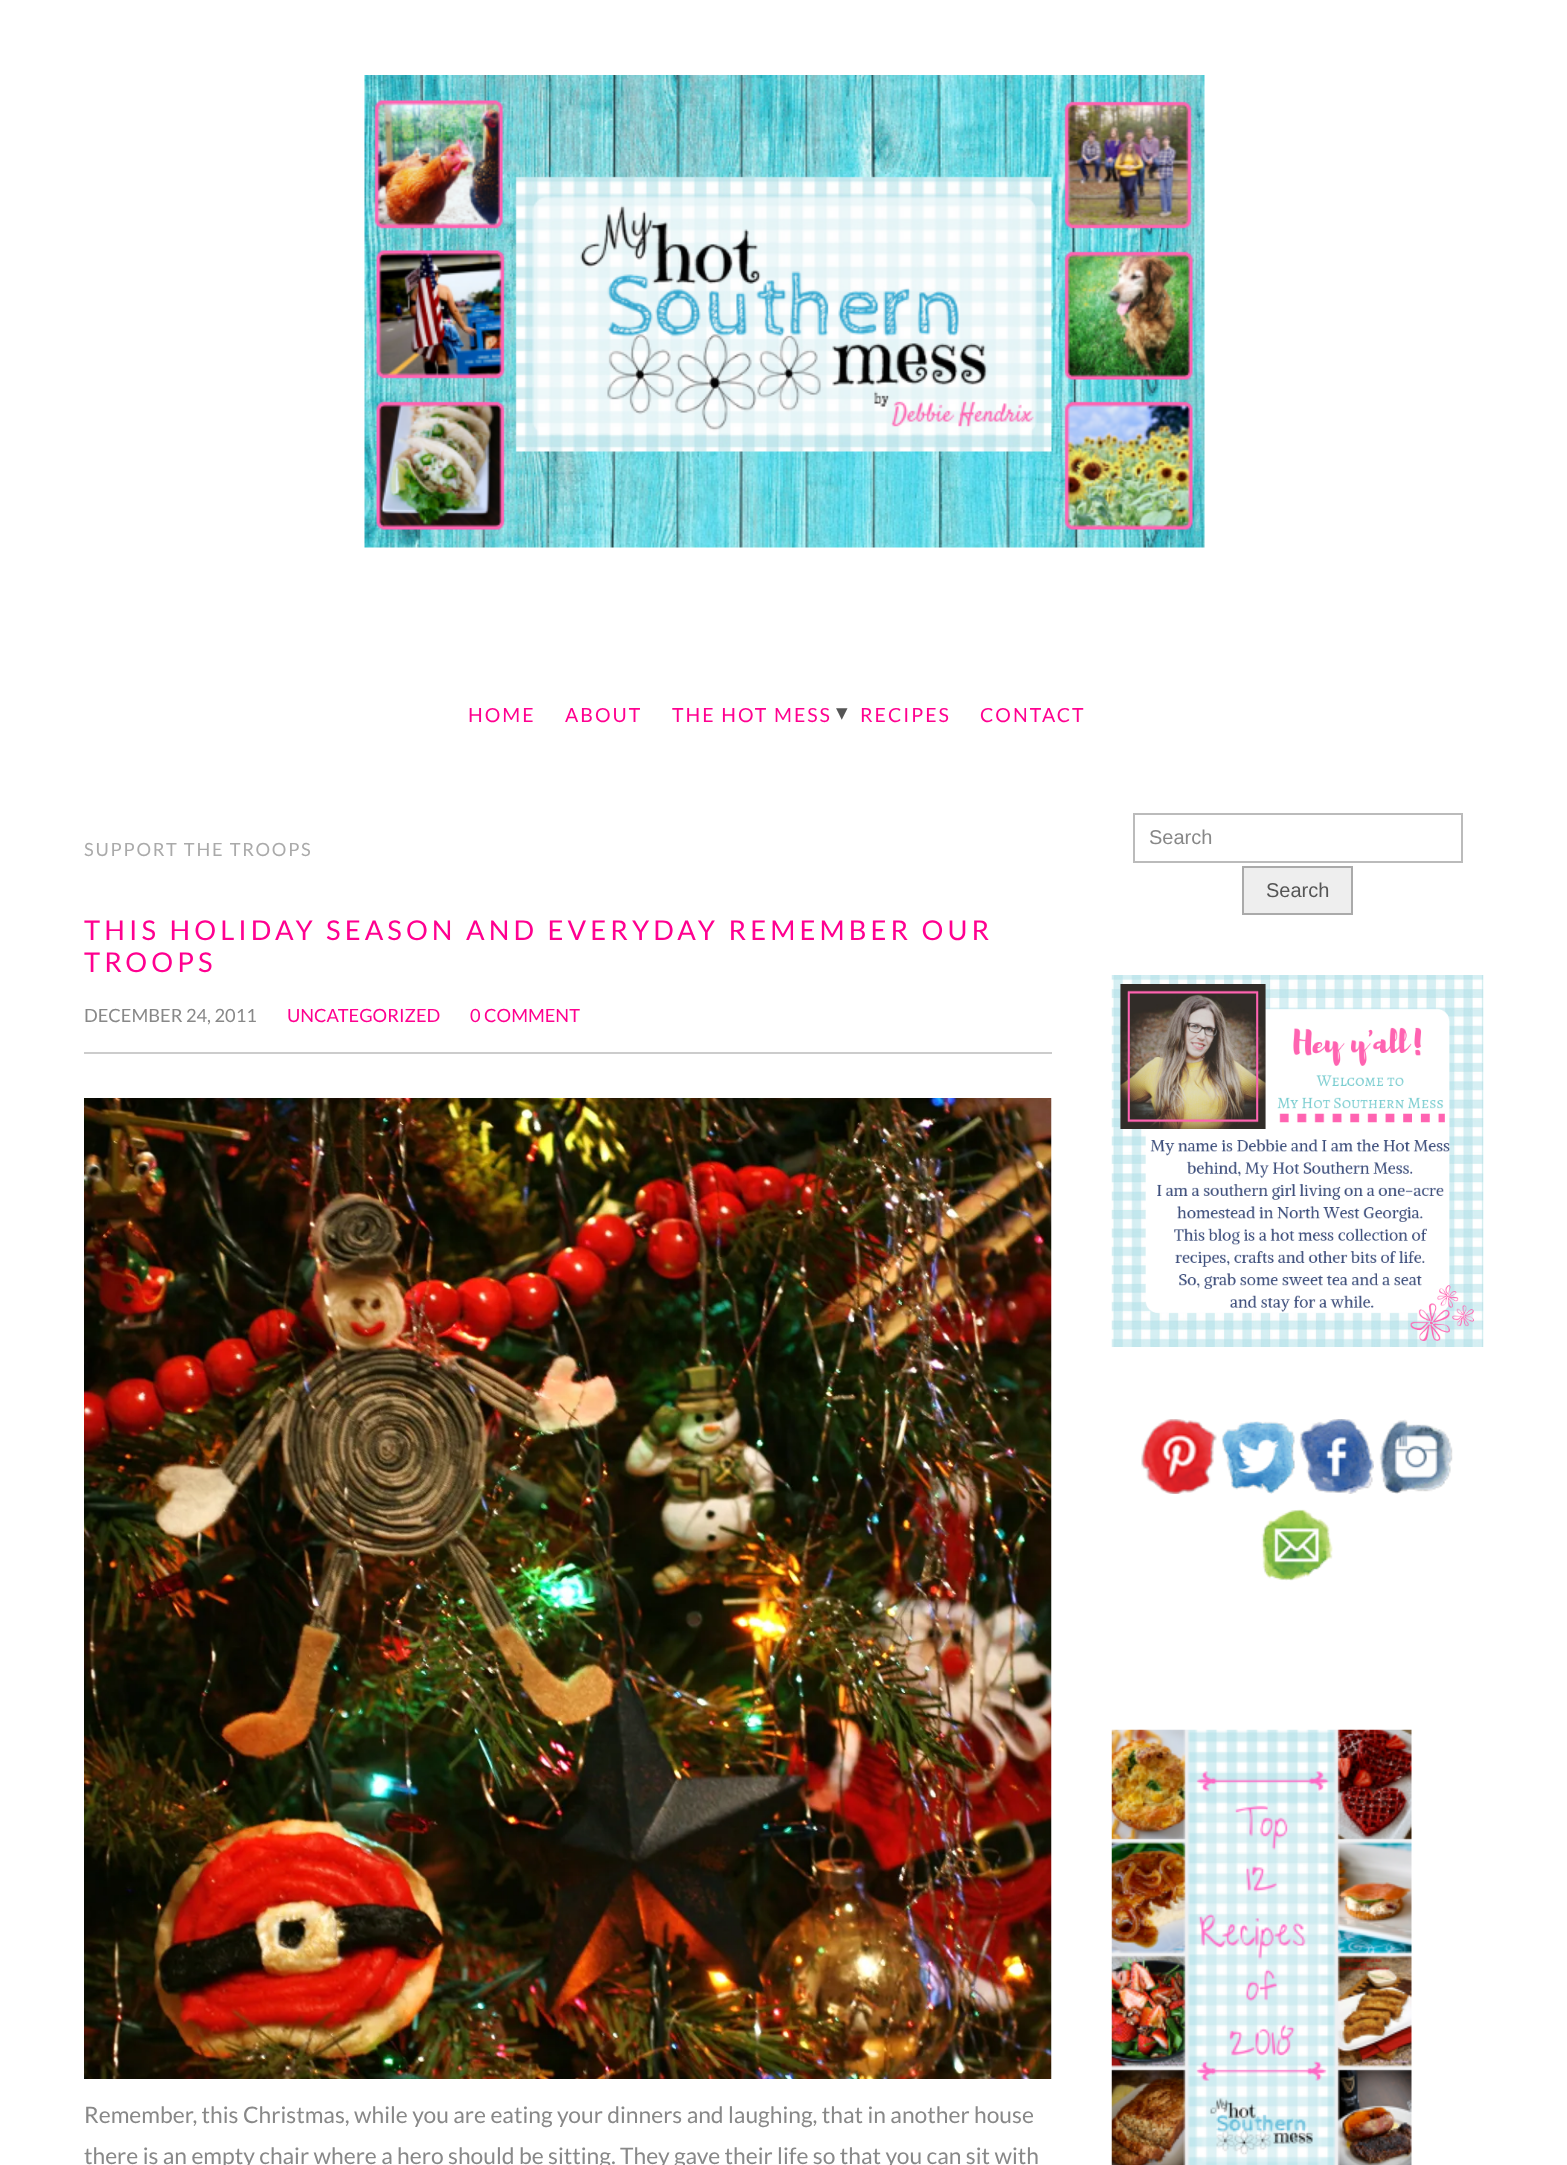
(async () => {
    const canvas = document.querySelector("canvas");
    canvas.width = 1567;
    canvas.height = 2165;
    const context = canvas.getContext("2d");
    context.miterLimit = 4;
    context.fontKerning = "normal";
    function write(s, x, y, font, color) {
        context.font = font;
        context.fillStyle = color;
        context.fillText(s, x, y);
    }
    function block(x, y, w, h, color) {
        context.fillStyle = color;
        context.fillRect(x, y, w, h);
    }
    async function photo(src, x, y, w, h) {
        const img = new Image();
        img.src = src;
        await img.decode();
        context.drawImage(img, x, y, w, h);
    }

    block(0, 0, 1567, 2165, "rgb(255, 255, 255)");
    await photo("media/1.png", 364, 75, 841, 473);
    context.letterSpacing = "2px";
    write("HOME", 468, 722, "19.5px Lato", "rgb(255, 0, 144)");
    write("ABOUT", 565, 722, "19.5px Lato", "rgb(255, 0, 144)");
    write("THE HOT MESS", 672, 722, "19.5px Lato", "rgb(255, 0, 144)");
    write("▾", 836, 720, "23px DejaVu Sans", "rgb(85, 85, 85)");
    write("RECIPES", 860, 722, "19.5px Lato", "rgb(255, 0, 144)");
    write("CONTACT", 980, 722, "19.5px Lato", "rgb(255, 0, 144)");
    context.letterSpacing = "1.8px";
    write("SUPPORT THE TROOPS", 84, 856, "18.25px Lato", "rgb(170, 170, 170)");
    context.letterSpacing = "4.1px";
    write("THIS HOLIDAY SEASON AND EVERYDAY REMEMBER OUR", 84, 940, "27.35px Lato", "rgb(255, 0, 144)");
    write("TROOPS", 84, 972, "27.35px Lato", "rgb(255, 0, 144)");
    block(84, 1052, 968, 2, "rgb(204, 204, 204)");
    context.letterSpacing = "0px";
    write("DECEMBER 24, 2011", 84, 1022, "18.25px Lato", "rgb(136, 136, 136)");
    write("UNCATEGORIZED", 287, 1022, "18.25px Lato", "rgb(255, 0, 144)");
    write("0 COMMENT", 470, 1022, "18.25px Lato", "rgb(255, 0, 144)");
    await photo("media/2.png", 84, 1098, 968, 981);
    write("Remember, this Christmas, while you are eating your dinners and laughing, that in another house", 84, 2123, "22.8px Lato", "rgb(136, 136, 136)");
    write("there is an empty chair where a hero should be sitting. They gave their life so that you can sit with", 84, 2164, "22.8px Lato", "rgb(136, 136, 136)");
    context.strokeStyle = "rgb(187, 187, 187)";
    context.lineWidth = 2;
    context.strokeRect(1134, 814, 328, 48);
    write("Search", 1149, 844, "20px Liberation Sans", "rgb(136, 136, 136)");
    context.fillStyle = "rgb(238, 238, 238)";
    context.beginPath();
    context.rect(1243, 867, 109, 47);
    context.fill();
    context.strokeStyle = "rgb(170, 170, 170)";
    context.stroke();
    write("Search", 1266, 897, "20px Liberation Sans", "rgb(85, 85, 85)");
    await photo("media/3.png", 1111, 975, 373, 372);
    await photo("media/4.png", 1141, 1419, 76, 75);
    await photo("media/5.png", 1221, 1421, 75, 73);
    await photo("media/6.png", 1299, 1419, 75, 75);
    await photo("media/7.png", 1379, 1419, 74, 75);
    await photo("media/8.png", 1261, 1509, 72, 72);
    await photo("media/9.png", 1111, 1729, 301, 436);
})();
